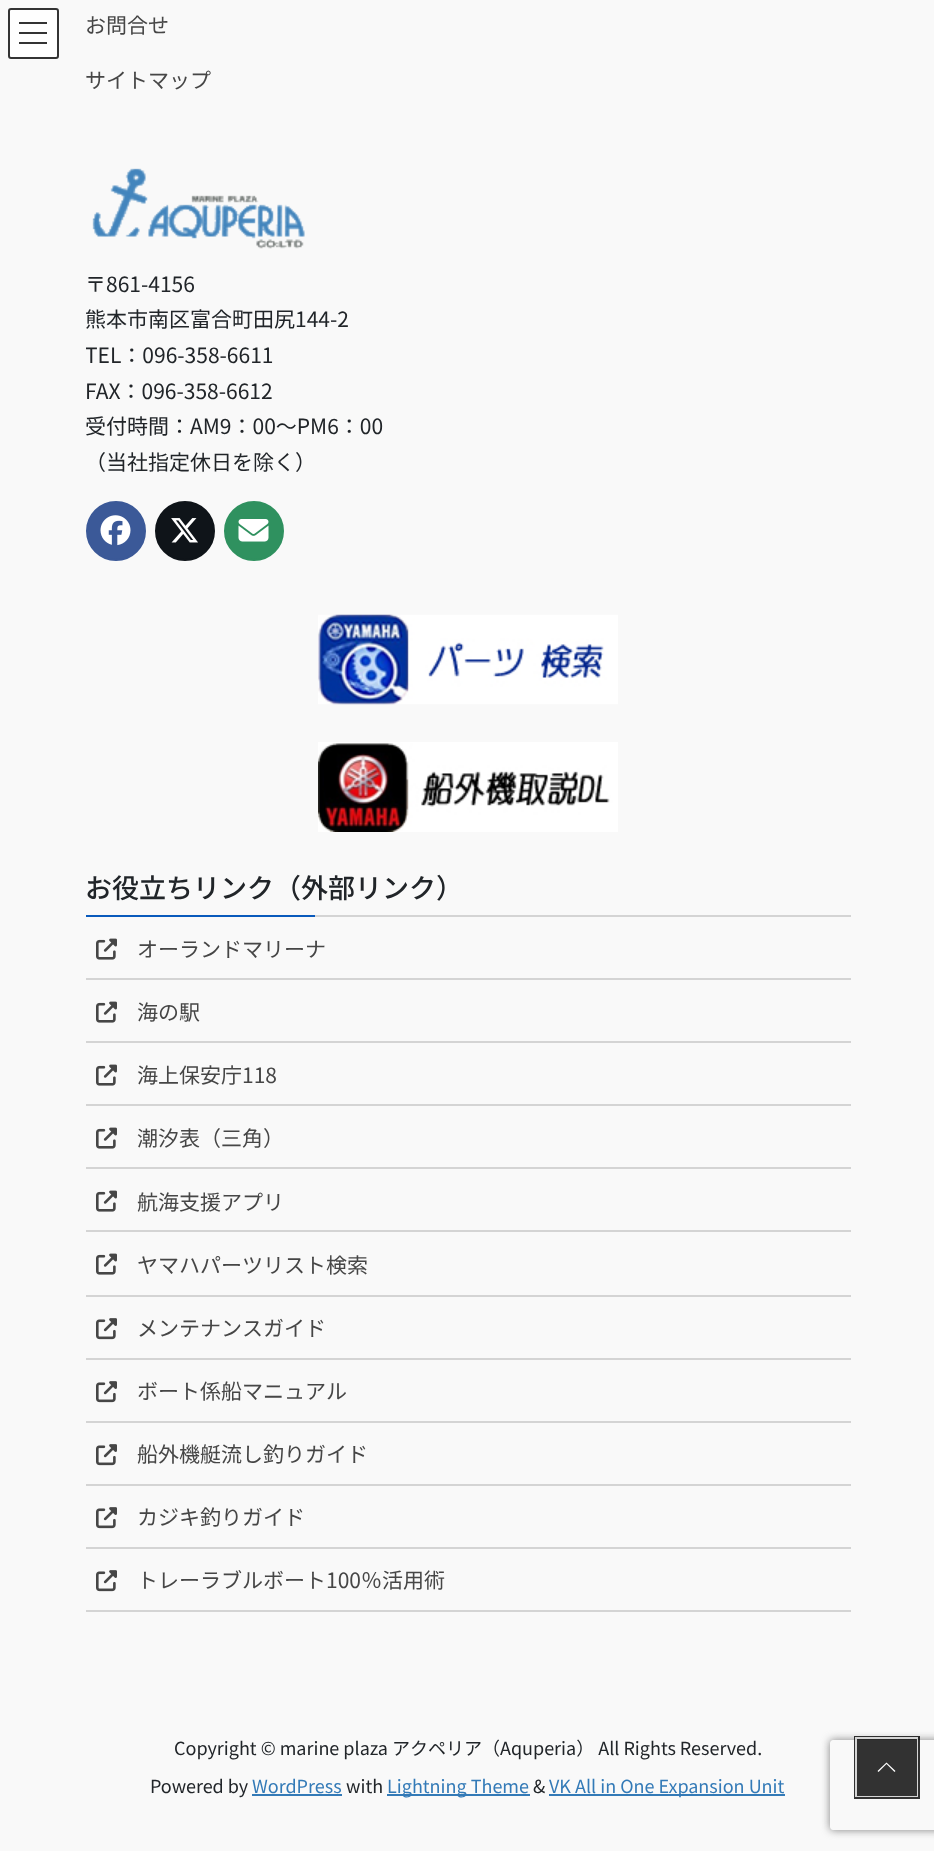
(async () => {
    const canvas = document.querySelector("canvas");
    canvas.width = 934;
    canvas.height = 1851;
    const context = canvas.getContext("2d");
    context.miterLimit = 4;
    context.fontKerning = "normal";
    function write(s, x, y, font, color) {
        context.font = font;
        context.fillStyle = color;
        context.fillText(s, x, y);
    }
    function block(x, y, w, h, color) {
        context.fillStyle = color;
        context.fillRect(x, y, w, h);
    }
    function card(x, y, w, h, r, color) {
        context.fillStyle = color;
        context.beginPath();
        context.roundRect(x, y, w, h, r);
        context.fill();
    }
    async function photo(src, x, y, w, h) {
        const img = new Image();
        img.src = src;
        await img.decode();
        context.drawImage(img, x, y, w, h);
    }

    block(0, 0, 934, 1851, "rgb(249, 249, 249)");
    card(8, 8, 51, 51, 3, "rgb(254, 254, 254)");
    block(19, 22, 28, 2, "rgb(51, 51, 51)");
    block(19, 32, 28, 2, "rgb(51, 51, 51)");
    block(19, 42, 28, 2, "rgb(51, 51, 51)");
    context.beginPath();
    context.roundRect(9, 9, 49, 49, 2);
    context.strokeStyle = "rgb(51, 51, 51)";
    context.lineWidth = 2;
    context.stroke();
    write("お問合せ", 85, 33, "21px Noto Sans JP", "rgb(70, 70, 70)");
    write("サイトマップ", 85, 88, "21px Noto Sans JP", "rgb(70, 70, 70)");
    await photo("media/1.png", 92, 168, 213, 81);
    write("〒861-4156", 85, 292, "21px Noto Sans JP", "rgb(33, 37, 41)");
    write("熊本市南区富合町田尻144-2", 85, 327, "21px Noto Sans JP", "rgb(33, 37, 41)");
    context.save();
    context.beginPath();
    context.rect(86, 150, 765, 428);
    context.clip();
    write("TEL：096-358-6611", 85, 363, "21px Noto Sans JP", "rgb(33, 37, 41)");
    context.restore();
    write("FAX：096-358-6612", 85, 399, "21px Noto Sans JP", "rgb(33, 37, 41)");
    write("受付時間：AM9：00～PM6：00", 85, 434, "21px Noto Sans JP", "rgb(33, 37, 41)");
    write("（当社指定休日を除く）", 85, 470, "21px Noto Sans JP", "rgb(33, 37, 41)");
    context.fillStyle = "rgb(59, 89, 152)";
    context.beginPath();
    context.arc(116, 531, 29, 0, Math.PI * 2);
    context.fill();
    context.strokeStyle = "rgb(59, 89, 152)";
    context.stroke();
    await photo("media/2.png", 100, 515, 31, 31);
    context.fillStyle = "rgb(15, 20, 25)";
    context.beginPath();
    context.arc(185, 531, 29, 0, Math.PI * 2);
    context.fill();
    context.strokeStyle = "rgb(15, 20, 25)";
    context.stroke();
    await photo("media/3.png", 171, 518, 27, 25);
    context.fillStyle = "rgb(47, 145, 95)";
    context.beginPath();
    context.arc(254, 531, 29, 0, Math.PI * 2);
    context.fill();
    context.strokeStyle = "rgb(47, 145, 95)";
    context.stroke();
    await photo("media/4.png", 238, 519, 31, 23);
    await photo("media/5.png", 318, 614, 300, 91);
    await photo("media/6.png", 318, 742, 300, 90);
    block(315, 915, 536, 2, "rgb(212, 212, 212)");
    write("お役立ちリンク（外部リンク）", 85, 898, "500 27px Noto Sans JP", "rgb(33, 37, 41)");
    block(86, 915, 229, 2, "rgb(9, 90, 188)");
    block(86, 978, 765, 2, "rgb(212, 212, 212)");
    await photo("media/7.png", 96, 938, 21, 22);
    write("オーランドマリーナ", 137, 957, "21px Noto Sans JP", "rgb(70, 70, 70)");
    block(86, 1041, 765, 2, "rgb(212, 212, 212)");
    await photo("media/7.png", 96, 1001, 21, 22);
    write("海の駅", 137, 1020, "21px Noto Sans JP", "rgb(70, 70, 70)");
    block(86, 1104, 765, 2, "rgb(212, 212, 212)");
    await photo("media/7.png", 96, 1064, 21, 22);
    write("海上保安庁118", 137, 1083, "21px Noto Sans JP", "rgb(70, 70, 70)");
    block(86, 1167, 765, 2, "rgb(212, 212, 212)");
    await photo("media/7.png", 96, 1127, 21, 22);
    write("潮汐表（三角）", 137, 1146, "21px Noto Sans JP", "rgb(70, 70, 70)");
    block(86, 1230, 765, 2, "rgb(212, 212, 212)");
    await photo("media/7.png", 96, 1190, 21, 22);
    write("航海支援アプリ", 137, 1210, "21px Noto Sans JP", "rgb(70, 70, 70)");
    block(86, 1295, 765, 2, "rgb(212, 212, 212)");
    await photo("media/7.png", 96, 1253, 21, 22);
    write("ヤマハパーツリスト検索", 137, 1273, "21px Noto Sans JP", "rgb(70, 70, 70)");
    block(86, 1358, 765, 2, "rgb(212, 212, 212)");
    await photo("media/8.png", 96, 1318, 21, 22);
    write("メンテナンスガイド", 137, 1336, "21px Noto Sans JP", "rgb(70, 70, 70)");
    block(86, 1421, 765, 2, "rgb(212, 212, 212)");
    await photo("media/8.png", 96, 1381, 21, 22);
    write("ボート係船マニュアル", 137, 1399, "21px Noto Sans JP", "rgb(70, 70, 70)");
    block(86, 1484, 765, 2, "rgb(212, 212, 212)");
    await photo("media/8.png", 96, 1444, 21, 22);
    write("船外機艇流し釣りガイド", 137, 1462, "21px Noto Sans JP", "rgb(70, 70, 70)");
    block(86, 1547, 765, 2, "rgb(212, 212, 212)");
    await photo("media/8.png", 96, 1507, 21, 22);
    write("カジキ釣りガイド", 137, 1525, "21px Noto Sans JP", "rgb(70, 70, 70)");
    block(86, 1610, 765, 2, "rgb(212, 212, 212)");
    await photo("media/8.png", 96, 1570, 21, 22);
    write("トレーラブルボート100％活用術", 137, 1588, "21px Noto Sans JP", "rgb(70, 70, 70)");
    write("Copyright © marine plaza アクペリア（Aquperia） All Rights Reserved.", 174, 1755, "18px Noto Sans JP", "rgb(33, 37, 41)");
    write("Powered by", 150, 1793, "18px Noto Sans JP", "rgb(33, 37, 41)");
    write("WordPress", 252, 1793, "18px Noto Sans JP", "rgb(51, 122, 183)");
    block(252, 1794, 90, 2, "rgb(51, 122, 183)");
    write("with", 346, 1793, "18px Noto Sans JP", "rgb(33, 37, 41)");
    block(387, 1794, 143, 2, "rgb(51, 122, 183)");
    write("Lightning Theme", 387, 1793, "18px Noto Sans JP", "rgb(51, 122, 183)");
    write("&", 533, 1793, "18px Noto Sans JP", "rgb(33, 37, 41)");
    block(549, 1794, 236, 2, "rgb(51, 122, 183)");
    write("VK All in One Expansion Unit", 549, 1793, "18px Noto Sans JP", "rgb(51, 122, 183)");
    context.save();
    context.beginPath();
    context.moveTo(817, 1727);
    context.lineTo(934, 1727);
    context.lineTo(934, 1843);
    context.lineTo(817, 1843);
    context.closePath();
    context.moveTo(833, 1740);
    context.lineTo(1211, 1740);
    context.bezierCurveTo(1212.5, 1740, 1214, 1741.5, 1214, 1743);
    context.lineTo(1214, 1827);
    context.bezierCurveTo(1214, 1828.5, 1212.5, 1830, 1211, 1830);
    context.lineTo(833, 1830);
    context.bezierCurveTo(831.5, 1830, 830, 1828.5, 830, 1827);
    context.lineTo(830, 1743);
    context.bezierCurveTo(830, 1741.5, 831.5, 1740, 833, 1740);
    context.closePath();
    context.clip("evenodd");
    context.fillStyle = "rgb(128, 128, 128)";
    context.filter = "blur(4px)";
    context.beginPath();
    context.roundRect(830, 1740, 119, 90, 3);
    context.fill();
    context.filter = "none";
    context.restore();
    context.strokeStyle = "rgba(0, 0, 0, 0.8)";
    context.lineWidth = 3;
    context.strokeRect(855.5, 1737.5, 63, 60);
    context.strokeStyle = "rgba(255, 255, 255, 0.8)";
    context.lineWidth = 2;
    context.strokeRect(856, 1738, 61, 58);
    block(857, 1739, 60, 57, "rgba(0, 0, 0, 0.8)");
    context.fillStyle = "rgb(255, 255, 255)";
    context.beginPath();
    context.moveTo(895.5, 1771);
    context.lineTo(894.5, 1772);
    context.lineTo(886.5, 1764);
    context.lineTo(878.5, 1772);
    context.lineTo(877.5, 1771);
    context.lineTo(886.5, 1762.5);
    context.closePath();
    context.fill();
})();
